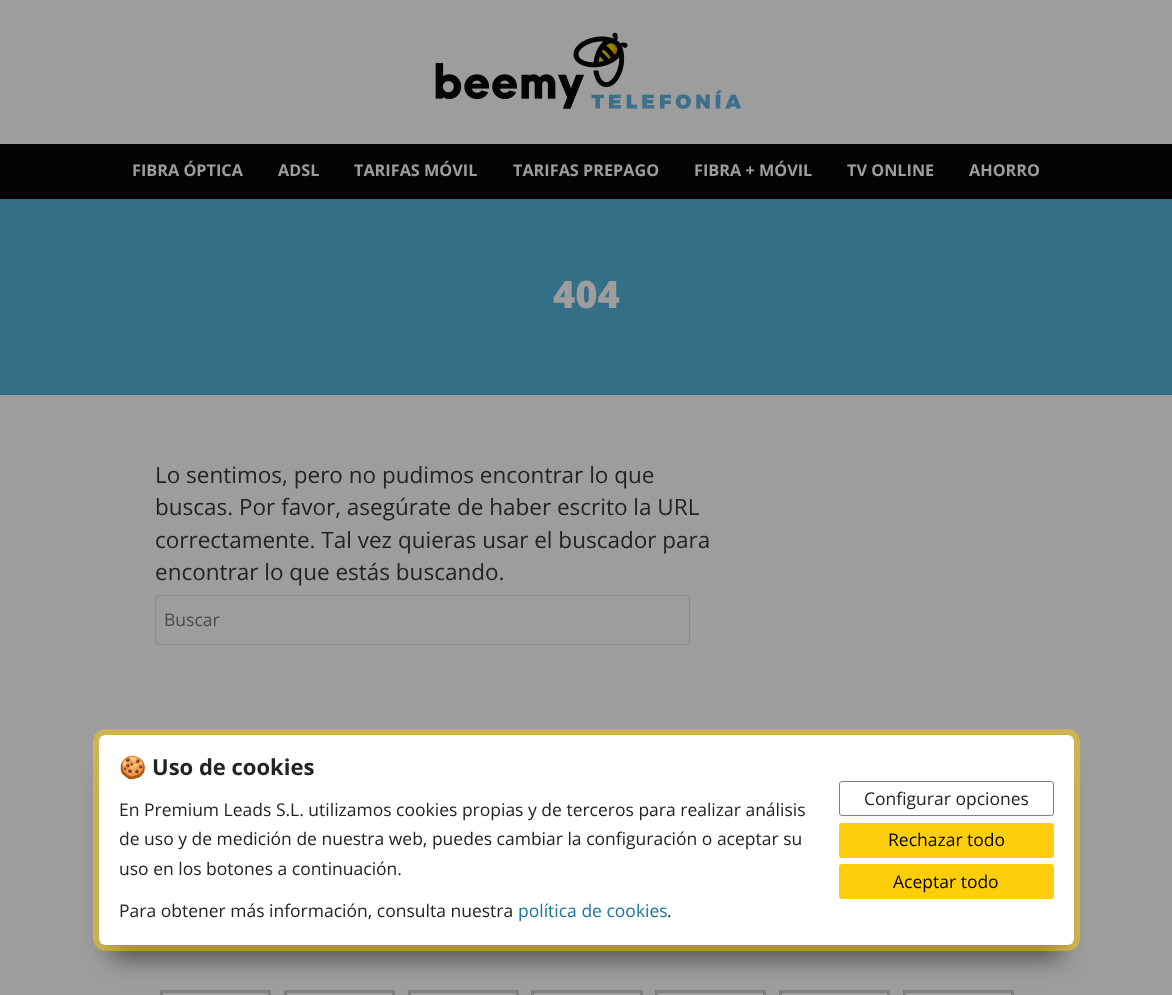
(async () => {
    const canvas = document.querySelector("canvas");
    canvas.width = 1172;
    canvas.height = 995;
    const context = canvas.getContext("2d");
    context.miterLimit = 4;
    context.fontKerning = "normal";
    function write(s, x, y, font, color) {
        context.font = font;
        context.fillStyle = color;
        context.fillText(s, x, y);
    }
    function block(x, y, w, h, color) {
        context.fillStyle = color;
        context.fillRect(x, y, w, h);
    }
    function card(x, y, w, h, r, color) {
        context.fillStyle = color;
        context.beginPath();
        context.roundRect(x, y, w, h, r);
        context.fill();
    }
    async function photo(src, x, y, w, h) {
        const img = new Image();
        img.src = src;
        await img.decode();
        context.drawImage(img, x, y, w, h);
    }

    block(0, 0, 1172, 995, "rgb(157, 157, 157)");
    await photo("media/1.png", 435, 32, 306, 77);
    block(0, 144, 1172, 55, "rgb(4, 4, 4)");
    write("FIBRA ÓPTICA", 132, 176, "bold 16.25px Open Sans", "rgb(157, 157, 157)");
    write("ADSL", 278, 176, "bold 16.25px Open Sans", "rgb(157, 157, 157)");
    write("TARIFAS MÓVIL", 354, 176, "bold 16.25px Open Sans", "rgb(157, 157, 157)");
    write("TARIFAS PREPAGO", 513, 176, "bold 16.25px Open Sans", "rgb(157, 157, 157)");
    write("FIBRA + MÓVIL", 694, 176, "bold 16.25px Open Sans", "rgb(157, 157, 157)");
    write("TV ONLINE", 847, 176, "bold 16.25px Open Sans", "rgb(157, 157, 157)");
    write("AHORRO", 969, 176, "bold 16.25px Open Sans", "rgb(157, 157, 157)");
    block(0, 199, 1172, 196, "rgb(52, 111, 136)");
    write("404", 553, 308, "800 38px Open Sans", "rgb(157, 157, 157)");
    write("Lo sentimos, pero no pudimos encontrar lo que", 155, 483, "22.5px Open Sans", "rgb(35, 35, 35)");
    write("buscas. Por favor, asegúrate de haber escrito la URL", 155, 515, "22.5px Open Sans", "rgb(35, 35, 35)");
    write("correctamente. Tal vez quieras usar el buscador para", 155, 548, "22.5px Open Sans", "rgb(35, 35, 35)");
    write("encontrar lo que estás buscando.", 155, 580, "22.5px Open Sans", "rgb(35, 35, 35)");
    context.beginPath();
    context.roundRect(155.5, 595.5, 534, 49, 3.5);
    context.strokeStyle = "rgb(140, 140, 140)";
    context.stroke();
    write("Buscar", 164, 626, "17.5px Open Sans", "rgb(74, 74, 74)");
    context.strokeStyle = "rgb(128, 128, 128)";
    context.lineWidth = 3;
    context.strokeRect(161.5, 991.5, 108, 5);
    context.strokeRect(285.5, 991.5, 108, 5);
    context.strokeRect(409.5, 991.5, 108, 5);
    context.strokeRect(532.5, 991.5, 109, 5);
    context.strokeRect(656.5, 991.5, 108, 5);
    context.strokeRect(780.5, 991.5, 108, 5);
    context.strokeRect(904.5, 991.5, 108, 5);
    context.fillStyle = "rgba(0, 0, 0, 0.5)";
    context.filter = "blur(12.5px)";
    context.beginPath();
    context.rect(111, 773, 950, 185);
    context.fill();
    context.filter = "none";
    card(99, 735, 975, 210, 6, "rgb(255, 255, 255)");
    context.beginPath();
    context.roundRect(839.5, 781.5, 214, 34, 2.5);
    context.lineWidth = 1;
    context.stroke();
    card(839, 823, 215, 35, 3, "rgb(254, 206, 11)");
    card(839, 864, 215, 35, 3, "rgb(254, 206, 11)");
    context.beginPath();
    context.roundRect(96, 732, 981, 216, 10);
    context.strokeStyle = "rgba(254, 205, 11, 0.5)";
    context.lineWidth = 6;
    context.stroke();
    write("🍪", 119, 775, "bold 22px Noto Color Emoji", "rgb(35, 35, 35)");
    write("Uso de cookies", 152, 775, "bold 22px Open Sans", "rgb(35, 35, 35)");
    write("En Premium Leads S.L. utilizamos cookies propias y de terceros para realizar análisis", 119, 816, "17.5px Open Sans", "rgb(35, 35, 35)");
    write("de uso y de medición de nuestra web, puedes cambiar la configuración o aceptar su", 119, 845, "17.5px Open Sans", "rgb(35, 35, 35)");
    write("uso en los botones a continuación.", 119, 875, "17.5px Open Sans", "rgb(35, 35, 35)");
    write("Para obtener más información, consulta nuestra", 119, 917, "17.5px Open Sans", "rgb(35, 35, 35)");
    write("política de cookies", 518, 917, "17.5px Open Sans", "rgb(27, 116, 155)");
    write(".", 667, 917, "17.5px Open Sans", "rgb(35, 35, 35)");
    write("Configurar opciones", 864, 805, "17.5px Open Sans", "rgb(35, 35, 35)");
    write("Rechazar todo", 888, 846, "17.5px Open Sans", "rgb(0, 0, 0)");
    write("Aceptar todo", 893, 888, "17.5px Open Sans", "rgb(0, 0, 0)");
})();
